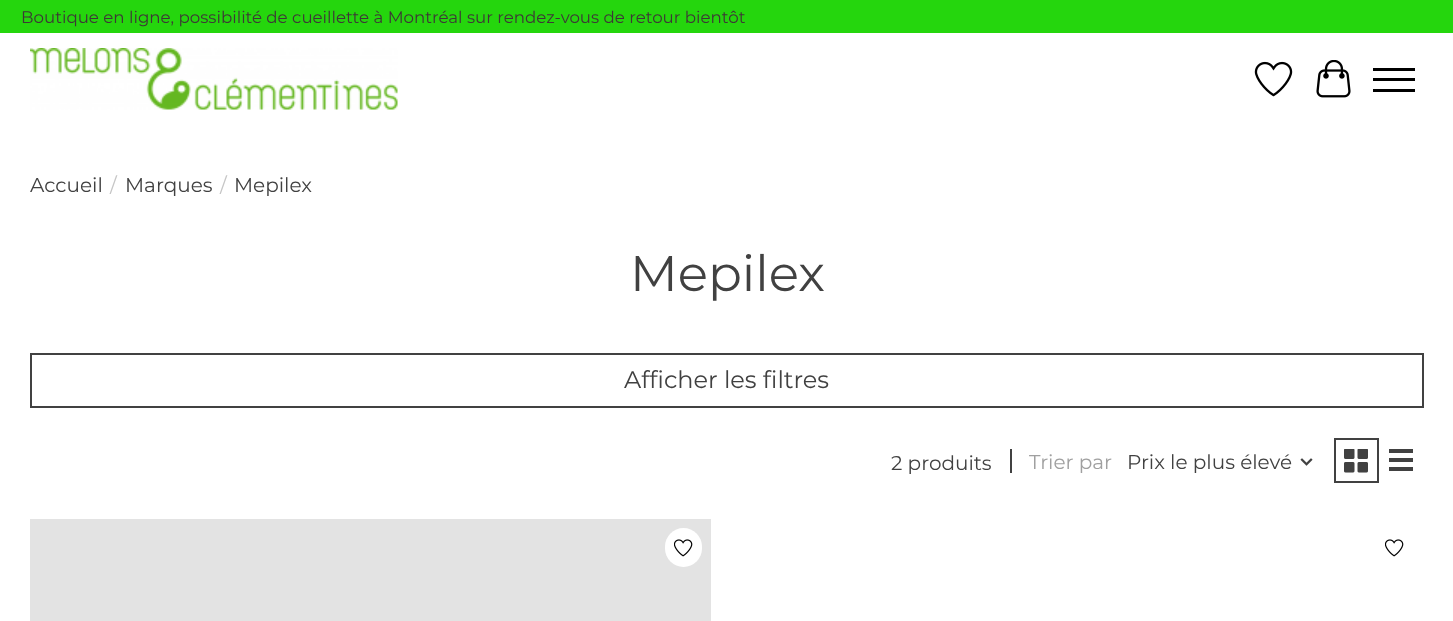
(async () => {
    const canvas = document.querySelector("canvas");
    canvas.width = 1453;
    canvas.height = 621;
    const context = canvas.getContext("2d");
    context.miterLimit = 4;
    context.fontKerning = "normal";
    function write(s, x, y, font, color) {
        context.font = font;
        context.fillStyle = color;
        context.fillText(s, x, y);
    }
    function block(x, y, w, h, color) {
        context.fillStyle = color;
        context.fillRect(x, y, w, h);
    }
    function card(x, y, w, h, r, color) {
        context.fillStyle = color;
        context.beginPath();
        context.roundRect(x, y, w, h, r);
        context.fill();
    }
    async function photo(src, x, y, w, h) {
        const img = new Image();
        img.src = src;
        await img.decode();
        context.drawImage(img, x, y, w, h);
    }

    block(0, 0, 1453, 621, "rgb(255, 255, 255)");
    block(0, 0, 1453, 33, "rgb(37, 214, 13)");
    write("Boutique en ligne, possibilité de cueillette à Montréal sur rendez-vous de retour bientôt", 21, 23, "16.65px Montserrat", "rgb(62, 55, 55)");
    await photo("media/1.png", 30, 48, 368, 62);
    await photo("media/2.png", 1254, 61, 39, 36);
    await photo("media/3.png", 1316, 60, 35, 38);
    block(1373, 78, 42, 3, "rgb(0, 0, 0)");
    block(1373, 68, 42, 3, "rgb(0, 0, 0)");
    block(1373, 89, 42, 3, "rgb(0, 0, 0)");
    write("Accueil", 30, 192, "20px Montserrat", "rgb(65, 65, 65)");
    write("/", 110, 192, "20px Montserrat", "rgb(198, 198, 198)");
    write("Marques", 125, 192, "20px Montserrat", "rgb(65, 65, 65)");
    write("/", 220, 192, "20px Montserrat", "rgb(198, 198, 198)");
    write("Mepilex", 234, 192, "20px Montserrat", "rgb(65, 65, 65)");
    write("Mepilex", 630, 291, "50px Montserrat", "rgb(65, 65, 65)");
    context.strokeStyle = "rgb(65, 65, 65)";
    context.lineWidth = 2;
    context.strokeRect(31, 354, 1392, 53);
    write("Afficher les filtres", 624, 388, "24px Montserrat", "rgb(65, 65, 65)");
    write("2 produits", 891, 470, "20px Montserrat", "rgb(65, 65, 65)");
    block(1010, 449, 2, 24, "rgb(65, 65, 65)");
    write("Trier par", 1029, 469, "20px Montserrat", "rgb(160, 160, 160)");
    write("Prix le plus élevé", 1127, 469, "20px Montserrat", "rgb(65, 65, 65)");
    await photo("media/4.png", 1300, 458, 13, 8);
    context.strokeRect(1335, 439, 43, 43);
    await photo("media/5.png", 1344, 449, 24, 24);
    block(1389, 449, 24, 4, "rgb(65, 65, 65)");
    block(1389, 458, 24, 4, "rgb(65, 65, 65)");
    block(1389, 467, 24, 4, "rgb(65, 65, 65)");
    block(30, 519, 681, 102, "rgb(227, 227, 227)");
    card(665, 528, 37, 39, 18.5, "rgb(255, 255, 255)");
    await photo("media/6.png", 674, 539, 19, 18);
    await photo("media/6.png", 1385, 539, 19, 18);
})();
